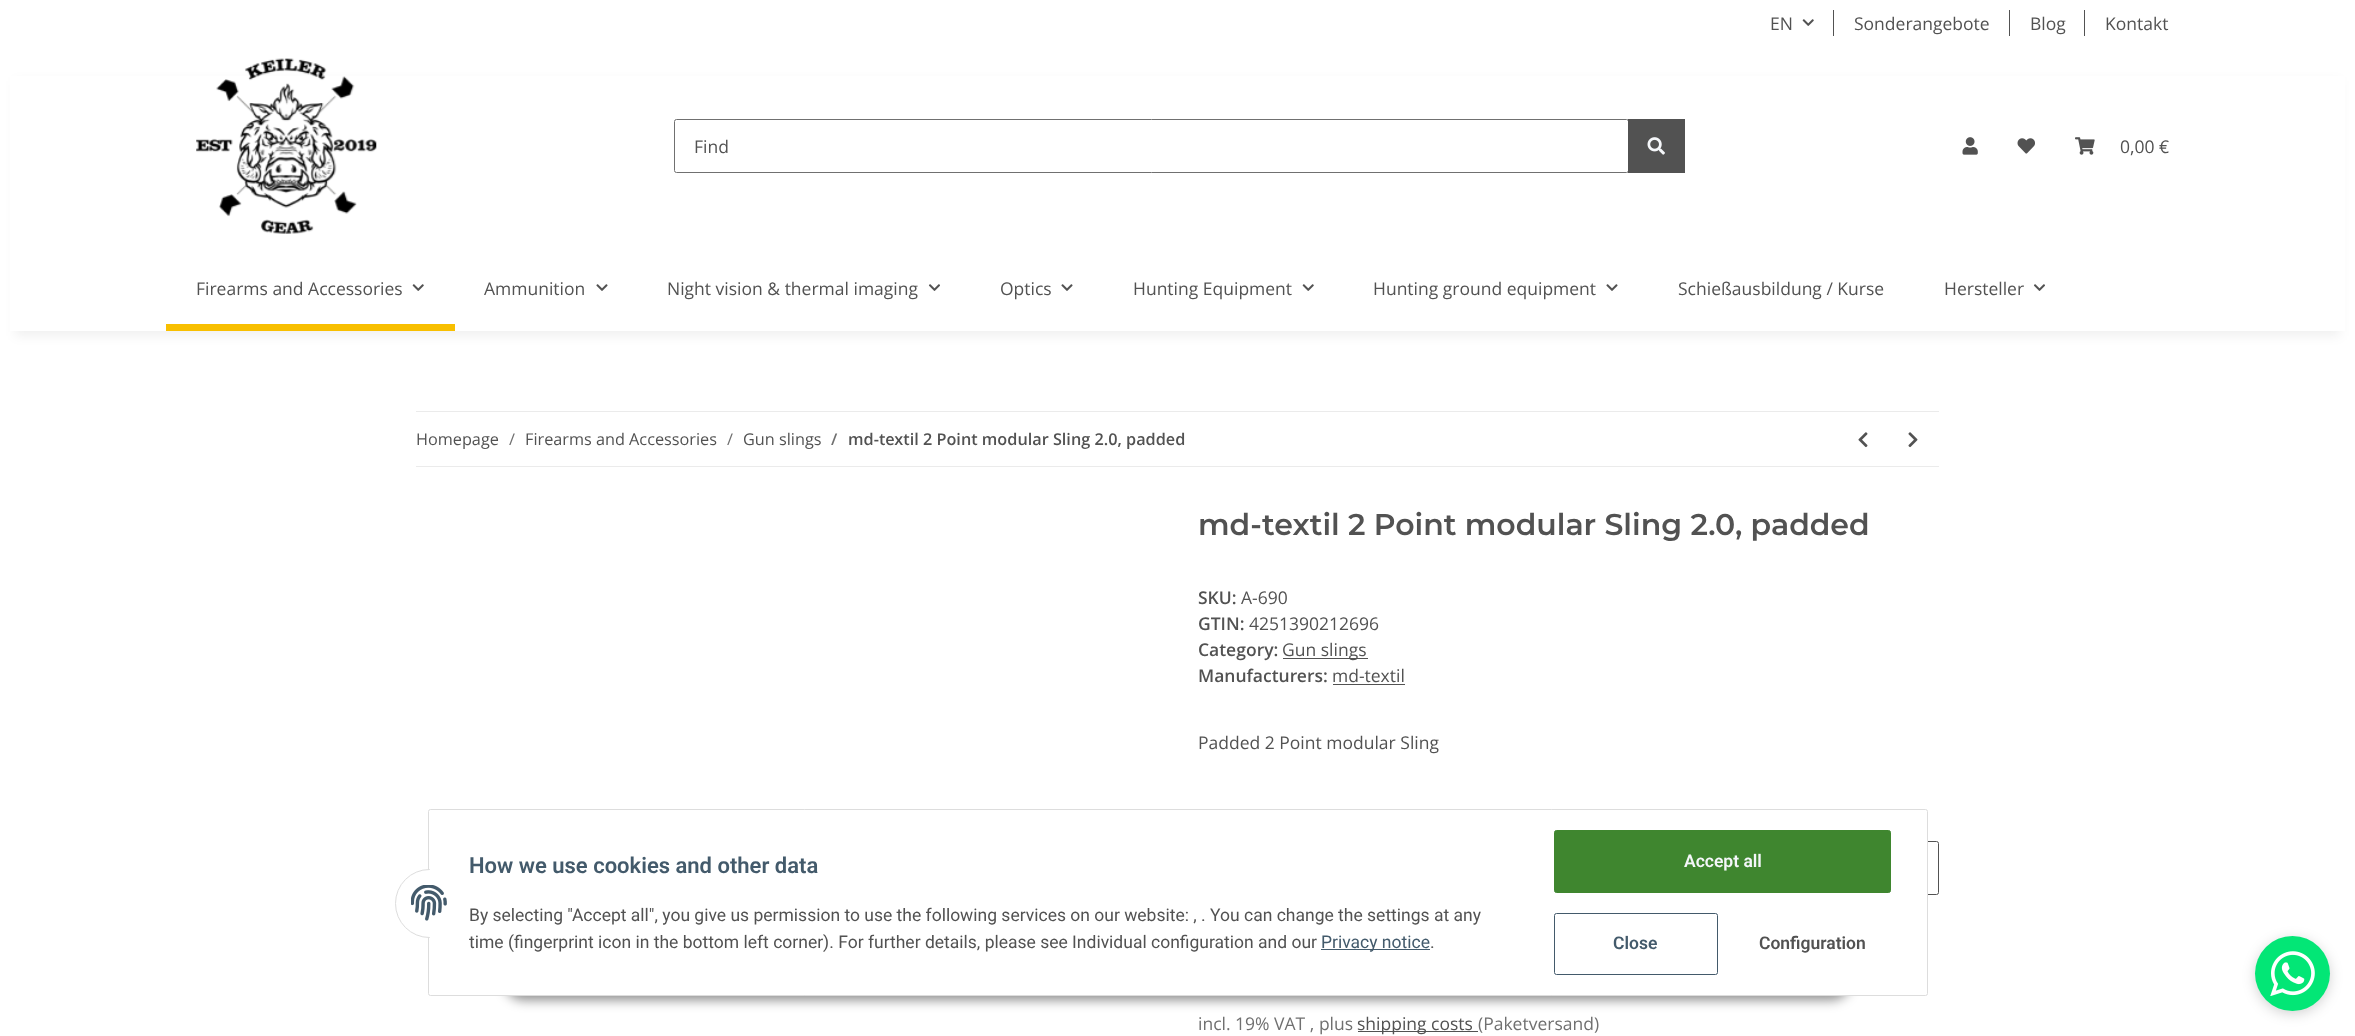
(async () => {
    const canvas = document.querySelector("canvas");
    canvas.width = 2355;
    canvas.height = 1036;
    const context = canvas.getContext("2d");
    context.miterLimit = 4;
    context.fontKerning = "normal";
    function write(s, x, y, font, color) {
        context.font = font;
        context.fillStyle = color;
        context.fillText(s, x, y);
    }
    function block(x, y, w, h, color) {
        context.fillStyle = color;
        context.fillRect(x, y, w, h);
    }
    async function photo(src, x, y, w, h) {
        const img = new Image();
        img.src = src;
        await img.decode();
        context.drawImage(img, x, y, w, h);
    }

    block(0, 0, 2355, 1036, "rgb(255, 255, 255)");
    write("EN", 1770, 30, "17.5px Open Sans", "rgb(82, 82, 82)");
    await photo("media/1.png", 1802, 19, 12, 7);
    block(1833, 10, 1, 26, "rgb(82, 82, 82)");
    write("Sonderangebote", 1854, 30, "17.5px Open Sans", "rgb(82, 82, 82)");
    block(2009, 10, 1, 26, "rgb(82, 82, 82)");
    write("Blog", 2030, 30, "17.5px Open Sans", "rgb(82, 82, 82)");
    block(2084, 10, 1, 26, "rgb(82, 82, 82)");
    write("Kontakt", 2105, 30, "17.5px Open Sans", "rgb(82, 82, 82)");
    context.fillStyle = "rgba(0, 0, 0, 0.06)";
    context.filter = "blur(5.5px)";
    context.beginPath();
    context.rect(15, 81, 2325, 255);
    context.fill();
    context.filter = "none";
    block(10, 76, 2335, 255, "rgb(255, 255, 255)");
    await photo("media/2.png", 196, 58, 181, 176);
    context.beginPath();
    context.roundRect(674.5, 119.5, 954, 53, 2);
    context.strokeStyle = "rgb(112, 112, 112)";
    context.stroke();
    write("Find", 694, 153, "17.5px Open Sans", "rgb(82, 82, 82)");
    block(1628, 119, 57, 54, "rgb(82, 82, 82)");
    await photo("media/3.png", 1647, 137, 18, 18);
    await photo("media/4.png", 1962, 137, 16, 18);
    await photo("media/5.png", 2017, 138, 18, 16);
    await photo("media/6.png", 2075, 137, 20, 18);
    write("0,00 €", 2120, 153, "17.5px Open Sans", "rgb(82, 82, 82)");
    write("Firearms and Accessories", 196, 295, "17.5px Open Sans", "rgb(82, 82, 82)");
    await photo("media/1.png", 412, 284, 12, 7);
    block(166, 324, 289, 7, "rgb(248, 191, 0)");
    write("Ammunition", 484, 295, "17.5px Open Sans", "rgb(82, 82, 82)");
    await photo("media/7.png", 596, 284, 12, 7);
    write("Night vision & thermal imaging", 667, 295, "17.5px Open Sans", "rgb(82, 82, 82)");
    await photo("media/8.png", 928, 284, 12, 7);
    write("Optics", 1000, 295, "17.5px Open Sans", "rgb(82, 82, 82)");
    await photo("media/7.png", 1061, 284, 12, 7);
    write("Hunting Equipment", 1133, 295, "17.5px Open Sans", "rgb(82, 82, 82)");
    await photo("media/1.png", 1302, 284, 12, 7);
    write("Hunting ground equipment", 1373, 295, "17.5px Open Sans", "rgb(82, 82, 82)");
    await photo("media/7.png", 1606, 284, 12, 7);
    write("Schießausbildung / Kurse", 1678, 295, "17.5px Open Sans", "rgb(82, 82, 82)");
    write("Hersteller", 1944, 295, "17.5px Open Sans", "rgb(82, 82, 82)");
    await photo("media/8.png", 2033, 284, 12, 7);
    block(416, 411, 1523, 1, "rgb(235, 235, 235)");
    block(416, 466, 1523, 1, "rgb(235, 235, 235)");
    write("Homepage", 416, 445, "16.25px Open Sans", "rgb(82, 82, 82)");
    write("/", 509, 445, "16.25px Open Sans", "rgb(112, 112, 112)");
    write("Firearms and Accessories", 525, 445, "16.25px Open Sans", "rgb(82, 82, 82)");
    write("/", 727, 445, "16.25px Open Sans", "rgb(112, 112, 112)");
    write("Gun slings", 743, 445, "16.25px Open Sans", "rgb(82, 82, 82)");
    write("/", 831, 445, "600 16.25px Open Sans", "rgb(112, 112, 112)");
    write("md-textil 2 Point modular Sling 2.0, padded", 848, 445, "600 16.25px Open Sans", "rgb(82, 82, 82)");
    await photo("media/9.png", 1858, 432, 10, 16);
    await photo("media/10.png", 1908, 432, 10, 16);
    write("md-textil 2 Point modular Sling 2.0, padded", 1198, 535, "600 30px Montserrat", "rgb(82, 82, 82)");
    write("SKU:", 1198, 604, "600 17.5px Open Sans", "rgb(82, 82, 82)");
    write("A-690", 1241, 604, "17.5px Open Sans", "rgb(82, 82, 82)");
    write("GTIN:", 1198, 630, "600 17.5px Open Sans", "rgb(82, 82, 82)");
    write("4251390212696", 1249, 630, "17.5px Open Sans", "rgb(82, 82, 82)");
    write("Category:", 1198, 656, "600 17.5px Open Sans", "rgb(82, 82, 82)");
    block(1283, 658, 85, 1, "rgb(82, 82, 82)");
    write("Gun slings", 1282, 656, "17.5px Open Sans", "rgb(82, 82, 82)");
    write("Manufacturers:", 1198, 682, "600 17.5px Open Sans", "rgb(82, 82, 82)");
    write("md-textil", 1332, 682, "17.5px Open Sans", "rgb(82, 82, 82)");
    block(1333, 684, 72, 1, "rgb(82, 82, 82)");
    write("Padded 2 Point modular Sling", 1198, 749, "17.5px Open Sans", "rgb(82, 82, 82)");
    context.beginPath();
    context.roundRect(1198.5, 841.5, 740, 53, 2);
    context.strokeStyle = "rgb(82, 82, 82)";
    context.stroke();
    write("incl. 19% VAT , plus", 1198, 1030, "17.5px Open Sans", "rgb(112, 112, 112)");
    block(1358, 1031, 120, 1, "rgb(82, 82, 82)");
    write("shipping costs", 1357, 1030, "17.5px Open Sans", "rgb(82, 82, 82)");
    write("(Paketversand)", 1478, 1030, "17.5px Open Sans", "rgb(112, 112, 112)");
    context.fillStyle = "rgba(0, 0, 0, 0.45)";
    context.filter = "blur(6px)";
    context.beginPath();
    context.roundRect(504, 960, 1347, 40, 20);
    context.fill();
    context.filter = "none";
    context.fillStyle = "rgb(255, 255, 255)";
    context.beginPath();
    context.roundRect(428.5, 809.5, 1499, 186, 2);
    context.fill();
    context.strokeStyle = "rgb(221, 221, 221)";
    context.stroke();
    context.beginPath();
    context.arc(429.5, 903.5, 34, 0, Math.PI * 2);
    context.fill();
    context.stroke();
    block(430, 869, 34, 69, "rgb(255, 255, 255)");
    await photo("media/11.png", 411, 885, 36, 36);
    write("How we use cookies and other data", 469, 873, "600 22px Roboto", "rgb(67, 90, 107)");
    write("By selecting \"Accept all\", you give us permission to use the following services on our website: , . You can change the settings at any", 469, 921, "17.5px Roboto", "rgb(82, 82, 82)");
    write("time (fingerprint icon in the bottom left corner). For further details, please see Individual configuration and our", 469, 948, "17.5px Roboto", "rgb(82, 82, 82)");
    block(1321, 949, 109, 1, "rgb(67, 90, 107)");
    write("Privacy notice", 1321, 948, "17.5px Roboto", "rgb(67, 90, 107)");
    write(".", 1430, 948, "17.5px Roboto", "rgb(82, 82, 82)");
    context.fillStyle = "rgb(63, 134, 47)";
    context.beginPath();
    context.roundRect(1554.5, 830.5, 336, 62, 2);
    context.fill();
    context.strokeStyle = "rgb(63, 134, 47)";
    context.stroke();
    write("Accept all", 1684, 867, "600 17.5px Roboto", "rgb(245, 247, 250)");
    context.beginPath();
    context.roundRect(1554.5, 913.5, 163, 61, 2);
    context.strokeStyle = "rgb(67, 90, 107)";
    context.stroke();
    write("Close", 1613, 949, "600 17.5px Roboto", "rgb(67, 90, 107)");
    write("Configuration", 1759, 949, "600 17.5px Roboto", "rgb(82, 82, 82)");
    context.fillStyle = "rgba(0, 0, 0, 0.2)";
    context.filter = "blur(7px)";
    context.beginPath();
    context.roundRect(2256, 940, 73, 73, 36.5);
    context.fill();
    context.filter = "none";
    context.fillStyle = "rgb(3, 230, 118)";
    context.beginPath();
    context.arc(2292.5, 973.5, 37.5, 0, Math.PI * 2);
    context.fill();
    await photo("media/12.png", 2270, 951, 45, 45);
})();
